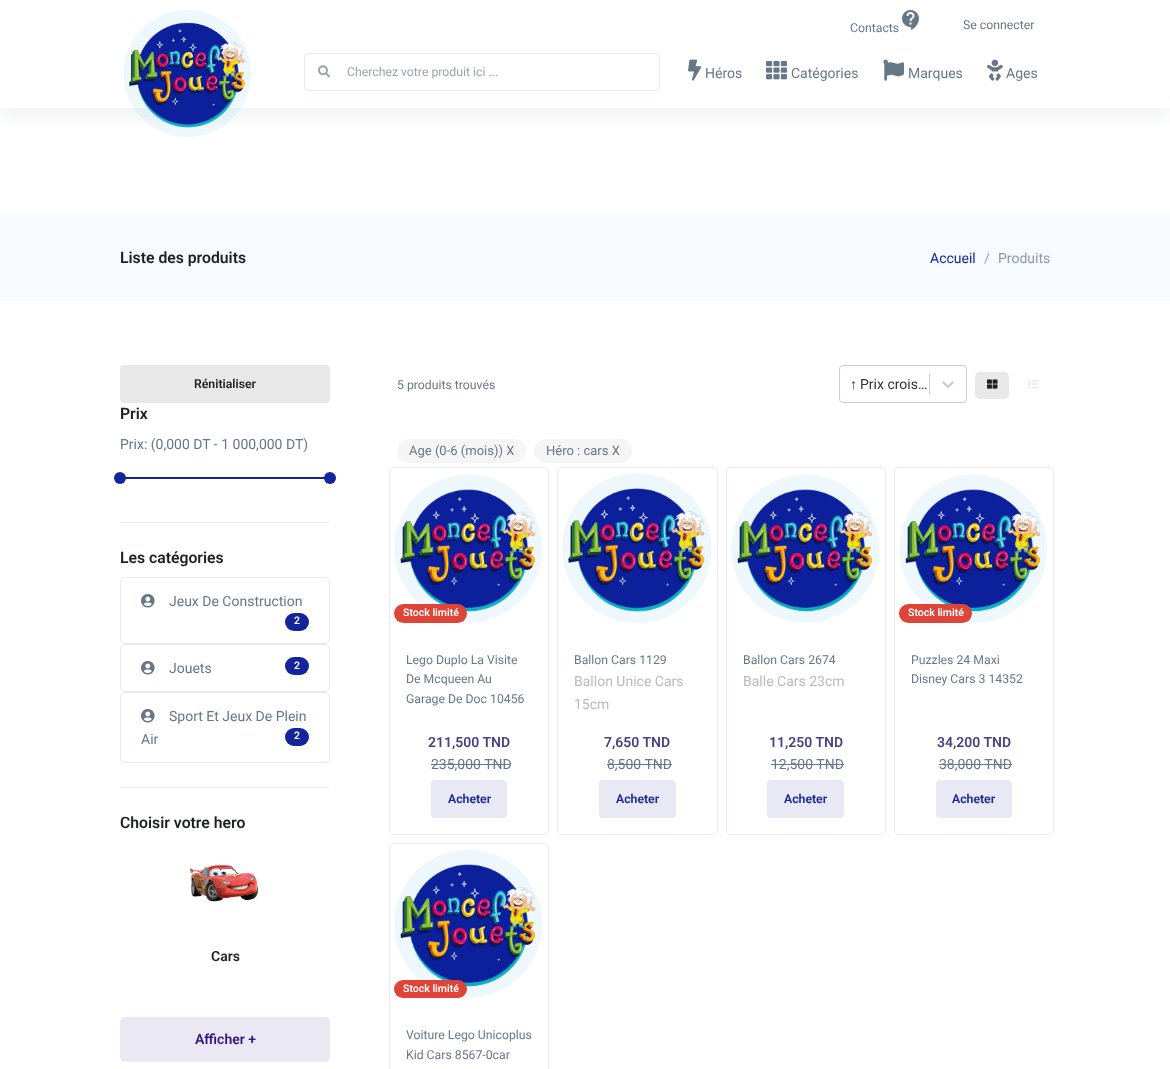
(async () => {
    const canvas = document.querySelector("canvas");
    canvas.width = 1170;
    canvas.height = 1069;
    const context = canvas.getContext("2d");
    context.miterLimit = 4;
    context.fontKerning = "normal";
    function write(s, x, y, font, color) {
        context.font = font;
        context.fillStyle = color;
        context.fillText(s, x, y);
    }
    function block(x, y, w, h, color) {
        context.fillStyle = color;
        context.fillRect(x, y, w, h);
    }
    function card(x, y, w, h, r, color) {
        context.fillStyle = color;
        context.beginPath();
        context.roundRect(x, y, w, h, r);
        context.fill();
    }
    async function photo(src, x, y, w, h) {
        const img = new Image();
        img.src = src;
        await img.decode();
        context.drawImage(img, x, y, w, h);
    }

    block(0, 0, 1170, 1069, "rgb(255, 255, 255)");
    context.save();
    context.beginPath();
    context.rect(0, 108, 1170, 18);
    context.clip();
    context.fillStyle = "rgba(140, 152, 164, 0.1)";
    context.filter = "blur(7.5px)";
    context.beginPath();
    context.rect(0, 12, 1170, 108);
    context.fill();
    context.filter = "none";
    context.restore();
    await photo("media/1.png", 123, 9, 128, 128);
    write("Contacts", 850, 32, "12.25px Roboto", "rgb(103, 119, 136)");
    await photo("media/2.png", 902, 10, 17, 20);
    write("Se connecter", 963, 29, "12.25px Roboto", "rgb(103, 119, 136)");
    context.beginPath();
    context.roundRect(304.5, 53.5, 355, 37, 3.5);
    context.strokeStyle = "rgb(231, 234, 243)";
    context.stroke();
    await photo("media/3.png", 318, 65, 13, 13);
    write("Cherchez votre produit ici ...", 347, 76, "12.25px Roboto", "rgb(151, 164, 175)");
    await photo("media/4.png", 688, 59, 14, 22);
    write("Héros", 705, 78, "14px Roboto", "rgb(103, 119, 136)");
    await photo("media/5.png", 766, 60, 21, 20);
    write("Catégories", 791, 78, "14px Roboto", "rgb(103, 119, 136)");
    await photo("media/6.png", 883, 59, 21, 22);
    write("Marques", 908, 78, "14px Roboto", "rgb(103, 119, 136)");
    await photo("media/7.png", 987, 59, 16, 22);
    write("Ages", 1006, 78, "14px Roboto", "rgb(103, 119, 136)");
    block(0, 215, 1170, 86, "rgb(247, 250, 255)");
    write("Liste des produits", 120, 263, "600 15.75px Roboto", "rgb(30, 32, 34)");
    write("Accueil", 930, 263, "14px Roboto", "rgb(20, 37, 155)");
    write("/", 984, 263, "14px Roboto", "rgb(151, 164, 175)");
    write("Produits", 998, 263, "14px Roboto", "rgb(140, 152, 164)");
    context.fillStyle = "rgb(232, 232, 232)";
    context.beginPath();
    context.roundRect(120.5, 365.5, 209, 37, 3.5);
    context.fill();
    context.strokeStyle = "rgb(232, 232, 232)";
    context.stroke();
    write("Rénitialiser", 194, 388, "600 12.25px Roboto", "rgb(30, 32, 34)");
    write("Prix", 120, 419, "600 15.75px Roboto", "rgb(30, 32, 34)");
    write("Prix: (0,000 DT - 1 000,000 DT)", 120, 449, "14px Roboto", "rgb(103, 119, 136)");
    block(120, 477, 210, 2, "rgb(20, 37, 155)");
    context.beginPath();
    context.arc(120, 478, 6, 0, Math.PI * 2);
    context.fill();
    context.beginPath();
    context.arc(330, 478, 6, 0, Math.PI * 2);
    context.fill();
    block(120, 522, 210, 1, "rgb(231, 234, 243)");
    write("Les catégories", 120, 563, "600 15.75px Roboto", "rgb(30, 32, 34)");
    context.beginPath();
    context.roundRect(120.5, 577.5, 209, 66, 4.5);
    context.strokeStyle = "rgb(231, 234, 243)";
    context.stroke();
    await photo("media/8.png", 141, 594, 14, 14);
    write("Jeux De Construction", 169, 606, "14px Roboto", "rgb(103, 119, 136)");
    card(285, 613, 24, 18, 9, "rgb(20, 37, 155)");
    write("2", 294, 624, "600 10.5px Roboto", "rgb(255, 255, 255)");
    context.beginPath();
    context.roundRect(120.5, 644.5, 209, 47, 4.5);
    context.stroke();
    await photo("media/8.png", 141, 661, 14, 14);
    write("Jouets", 169, 673, "14px Roboto", "rgb(103, 119, 136)");
    card(285, 657, 24, 18, 9, "rgb(20, 37, 155)");
    write("2", 294, 669, "600 10.5px Roboto", "rgb(255, 255, 255)");
    context.beginPath();
    context.roundRect(120.5, 692.5, 209, 70, 4.5);
    context.stroke();
    await photo("media/8.png", 141, 709, 14, 14);
    write("Sport Et Jeux De Plein", 169, 721, "14px Roboto", "rgb(103, 119, 136)");
    write("Air", 141, 744, "14px Roboto", "rgb(103, 119, 136)");
    card(285, 728, 24, 18, 9, "rgb(20, 37, 155)");
    write("2", 294, 739, "600 10.5px Roboto", "rgb(255, 255, 255)");
    block(120, 787, 210, 1, "rgb(231, 234, 243)");
    write("Choisir votre hero", 120, 828, "600 15.75px Roboto", "rgb(30, 32, 34)");
    await photo("media/9.png", 189, 864, 70, 38);
    write("Cars", 211, 961, "600 14px Roboto", "rgb(30, 32, 34)");
    card(120, 1017, 210, 45, 5, "rgb(234, 232, 243)");
    write("Afficher +", 195, 1044, "600 14px Roboto", "rgb(45, 21, 130)");
    write("5 produits trouvés", 397, 389, "12.25px Roboto", "rgb(103, 119, 136)");
    context.beginPath();
    context.roundRect(839.5, 365.5, 127, 37, 3.5);
    context.strokeStyle = "rgb(204, 204, 204)";
    context.stroke();
    write("↑", 850, 389, "14px Liberation Sans", "rgb(51, 51, 51)");
    write("Prix crois…", 860, 389, "14px Roboto", "rgb(51, 51, 51)");
    block(929, 374, 1, 20, "rgb(204, 204, 204)");
    await photo("media/10.png", 942, 381, 12, 7);
    card(975, 372, 34, 27, 5, "rgb(232, 232, 232)");
    await photo("media/11.png", 987, 379, 11, 10);
    await photo("media/12.png", 1028, 380, 11, 9);
    card(397, 439, 129, 24, 12, "rgb(245, 245, 245)");
    write("Age (0-6 (mois)) X", 409, 455, "13px Roboto", "rgb(103, 119, 136)");
    card(534, 439, 98, 24, 12, "rgb(245, 245, 245)");
    write("Héro : cars X", 546, 455, "13px Roboto", "rgb(103, 119, 136)");
    context.beginPath();
    context.roundRect(389.5, 467.5, 159, 367, 4.5);
    context.strokeStyle = "rgb(231, 234, 243)";
    context.stroke();
    await photo("media/13.png", 394, 474, 148, 149);
    card(394, 604, 73, 19, 9.5, "rgb(222, 68, 55)");
    write("Stock limité", 403, 616, "600 10.5px Roboto", "rgb(255, 255, 255)");
    write("Lego Duplo La Visite", 406, 664, "12.25px Roboto", "rgb(103, 119, 136)");
    write("De Mcqueen Au", 406, 683, "12.25px Roboto", "rgb(103, 119, 136)");
    write("Garage De Doc 10456", 406, 703, "12.25px Roboto", "rgb(103, 119, 136)");
    context.fillStyle = "rgb(255, 255, 255)";
    context.beginPath();
    context.roundRect(390, 731, 158, 103, [0, 0, 4, 4]);
    context.fill();
    write("211,500 TND", 428, 747, "600 14px Roboto", "rgb(68, 67, 133)");
    write("235,000 TND", 431, 769, "14px Roboto", "rgb(103, 119, 136)");
    block(431, 764, 80, 1, "rgb(103, 119, 136)");
    card(431, 780, 76, 38, 4, "rgb(232, 233, 245)");
    write("Acheter", 448, 803, "600 12.25px Roboto", "rgb(20, 37, 155)");
    context.beginPath();
    context.roundRect(557.5, 467.5, 160, 367, 4.5);
    context.stroke();
    await photo("media/14.png", 562, 473, 150, 150);
    write("Ballon Cars 1129", 574, 664, "12.25px Roboto", "rgb(103, 119, 136)");
    write("Ballon Unice Cars", 574, 686, "14px Roboto", "rgb(186, 186, 186)");
    write("15cm", 574, 709, "14px Roboto", "rgb(186, 186, 186)");
    context.fillStyle = "rgb(255, 255, 255)";
    context.beginPath();
    context.roundRect(558, 731, 159, 103, [0, 0, 4, 4]);
    context.fill();
    write("7,650 TND", 604, 747, "600 14px Roboto", "rgb(68, 67, 133)");
    write("8,500 TND", 607, 769, "14px Roboto", "rgb(103, 119, 136)");
    block(607, 764, 65, 1, "rgb(103, 119, 136)");
    card(599, 780, 77, 38, 4, "rgb(232, 233, 245)");
    write("Acheter", 616, 803, "600 12.25px Roboto", "rgb(20, 37, 155)");
    context.beginPath();
    context.roundRect(726.5, 467.5, 159, 367, 4.5);
    context.stroke();
    await photo("media/13.png", 731, 474, 148, 149);
    write("Ballon Cars 2674", 743, 664, "12.25px Roboto", "rgb(103, 119, 136)");
    write("Balle Cars 23cm", 743, 686, "14px Roboto", "rgb(186, 186, 186)");
    context.fillStyle = "rgb(255, 255, 255)";
    context.beginPath();
    context.roundRect(727, 731, 158, 103, [0, 0, 4, 4]);
    context.fill();
    write("11,250 TND", 769, 747, "600 14px Roboto", "rgb(68, 67, 133)");
    write("12,500 TND", 771, 769, "14px Roboto", "rgb(103, 119, 136)");
    block(771, 764, 73, 1, "rgb(103, 119, 136)");
    card(767, 780, 77, 38, 4, "rgb(232, 233, 245)");
    write("Acheter", 784, 803, "600 12.25px Roboto", "rgb(20, 37, 155)");
    context.beginPath();
    context.roundRect(894.5, 467.5, 159, 367, 4.5);
    context.stroke();
    await photo("media/13.png", 899, 474, 148, 149);
    card(899, 604, 73, 19, 9.5, "rgb(222, 68, 55)");
    write("Stock limité", 908, 616, "600 10.5px Roboto", "rgb(255, 255, 255)");
    write("Puzzles 24 Maxi", 911, 664, "12.25px Roboto", "rgb(103, 119, 136)");
    write("Disney Cars 3 14352", 911, 683, "12.25px Roboto", "rgb(103, 119, 136)");
    context.fillStyle = "rgb(255, 255, 255)";
    context.beginPath();
    context.roundRect(895, 731, 158, 103, [0, 0, 4, 4]);
    context.fill();
    write("34,200 TND", 937, 747, "600 14px Roboto", "rgb(68, 67, 133)");
    write("38,000 TND", 939, 769, "14px Roboto", "rgb(103, 119, 136)");
    block(939, 764, 73, 1, "rgb(103, 119, 136)");
    card(936, 780, 76, 38, 4, "rgb(232, 233, 245)");
    write("Acheter", 952, 803, "600 12.25px Roboto", "rgb(20, 37, 155)");
    context.beginPath();
    context.roundRect(389.5, 843.5, 159, 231, 4.5);
    context.stroke();
    await photo("media/13.png", 394, 849, 148, 149);
    card(394, 980, 73, 18, 9, "rgb(222, 68, 55)");
    write("Stock limité", 403, 992, "600 10.5px Roboto", "rgb(255, 255, 255)");
    write("Voiture Lego Unicoplus", 406, 1039, "12.25px Roboto", "rgb(103, 119, 136)");
    write("Kid Cars 8567-0car", 406, 1059, "12.25px Roboto", "rgb(103, 119, 136)");
})();
